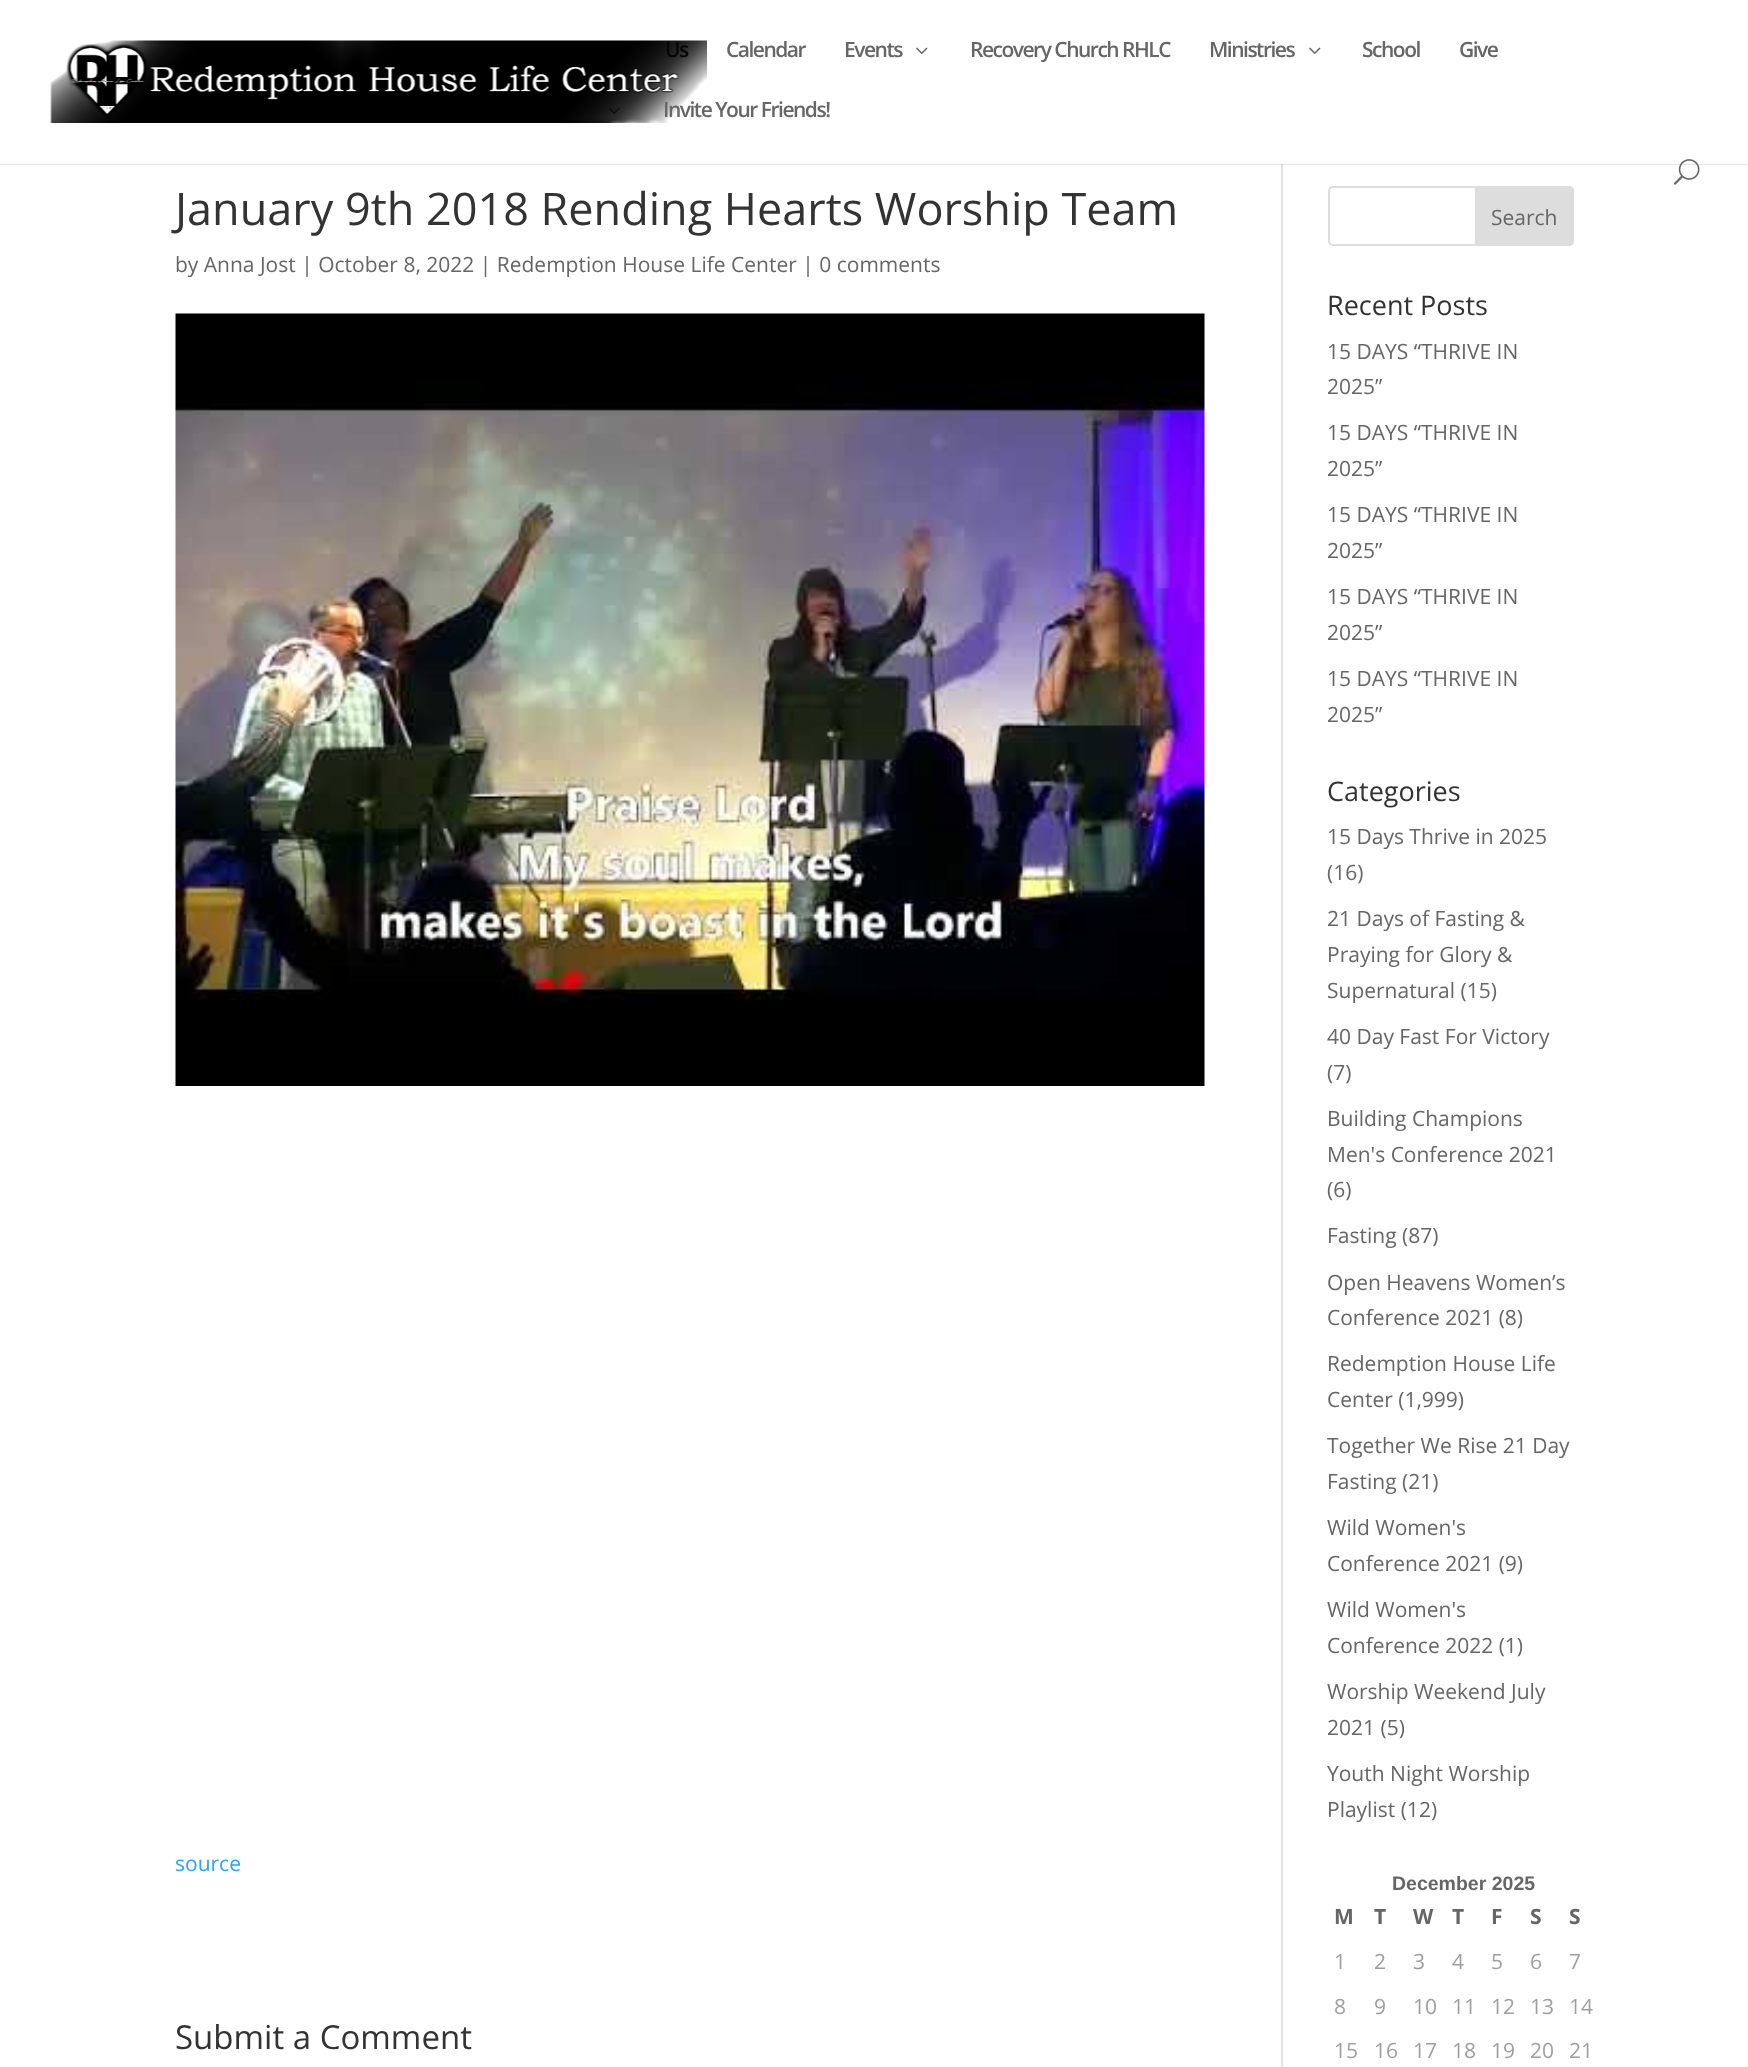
(async () => {
    const canvas = document.querySelector("canvas");
    canvas.width = 1748;
    canvas.height = 2067;
    const context = canvas.getContext("2d");
    context.miterLimit = 4;
    context.fontKerning = "normal";
    function write(s, x, y, font, color) {
        context.font = font;
        context.fillStyle = color;
        context.fillText(s, x, y);
    }
    function block(x, y, w, h, color) {
        context.fillStyle = color;
        context.fillRect(x, y, w, h);
    }
    async function photo(src, x, y, w, h) {
        const img = new Image();
        img.src = src;
        await img.decode();
        context.drawImage(img, x, y, w, h);
    }

    block(0, 0, 1748, 2067, "rgb(255, 255, 255)");
    block(0, 164, 1748, 1, "rgb(230, 230, 230)");
    await photo("media/1.png", 50, 40, 657, 83);
    context.letterSpacing = "-1.5px";
    write("Us", 665, 57, "600 21px Open Sans", "rgb(6, 6, 6)");
    write("Calendar", 726, 57, "600 21px Open Sans", "rgb(102, 102, 102)");
    write("Events", 844, 57, "600 21px Open Sans", "rgb(102, 102, 102)");
    await photo("media/2.png", 916, 47, 12, 7);
    write("Recovery Church RHLC", 970, 57, "600 21px Open Sans", "rgb(102, 102, 102)");
    write("Ministries", 1209, 57, "600 21px Open Sans", "rgb(102, 102, 102)");
    await photo("media/2.png", 1309, 47, 12, 7);
    write("School", 1362, 57, "600 21px Open Sans", "rgb(102, 102, 102)");
    write("Give", 1459, 57, "600 21px Open Sans", "rgb(102, 102, 102)");
    await photo("media/3.png", 609, 108, 11, 6);
    write("Invite Your Friends!", 663, 117, "600 21px Open Sans", "rgb(102, 102, 102)");
    await photo("media/4.png", 1673, 159, 27, 26);
    block(1281, 165, 2, 1902, "rgb(226, 226, 226)");
    block(1281, 164, 2, 1, "rgb(203, 203, 203)");
    context.letterSpacing = "0px";
    write("January 9th 2018 Rending Hearts Worship Team", 175, 225, "45px Open Sans", "rgb(51, 51, 51)");
    write("by Anna Jost | October 8, 2022 | Redemption House Life Center | 0 comments", 175, 272, "21px Open Sans", "rgb(102, 102, 102)");
    await photo("media/5.png", 175, 313, 1030, 773);
    write("source", 175, 1871, "21px Open Sans", "rgb(46, 163, 242)");
    write("Submit a Comment", 175, 2049, "33px Open Sans", "rgb(51, 51, 51)");
    context.beginPath();
    context.roundRect(1329, 187, 244, 58, 4);
    context.strokeStyle = "rgb(221, 221, 221)";
    context.lineWidth = 2;
    context.stroke();
    context.fillStyle = "rgb(221, 221, 221)";
    context.beginPath();
    context.roundRect(1476, 187, 97, 58, [0, 4, 4, 0]);
    context.fill();
    context.stroke();
    write("Search", 1491, 225, "21px Open Sans", "rgb(102, 102, 102)");
    write("Recent Posts", 1327, 315, "27px Open Sans", "rgb(51, 51, 51)");
    write("15 DAYS “THRIVE IN", 1327, 359, "21px Open Sans", "rgb(102, 102, 102)");
    write("2025”", 1327, 394, "21px Open Sans", "rgb(102, 102, 102)");
    write("15 DAYS “THRIVE IN", 1327, 440, "21px Open Sans", "rgb(102, 102, 102)");
    write("2025”", 1327, 476, "21px Open Sans", "rgb(102, 102, 102)");
    write("15 DAYS “THRIVE IN", 1327, 522, "21px Open Sans", "rgb(102, 102, 102)");
    write("2025”", 1327, 558, "21px Open Sans", "rgb(102, 102, 102)");
    write("15 DAYS “THRIVE IN", 1327, 604, "21px Open Sans", "rgb(102, 102, 102)");
    write("2025”", 1327, 640, "21px Open Sans", "rgb(102, 102, 102)");
    write("15 DAYS “THRIVE IN", 1327, 686, "21px Open Sans", "rgb(102, 102, 102)");
    write("2025”", 1327, 722, "21px Open Sans", "rgb(102, 102, 102)");
    write("Categories", 1327, 801, "27px Open Sans", "rgb(51, 51, 51)");
    write("15 Days Thrive in 2025", 1327, 844, "21px Open Sans", "rgb(102, 102, 102)");
    write("(16)", 1327, 880, "21px Open Sans", "rgb(102, 102, 102)");
    write("21 Days of Fasting &", 1327, 926, "21px Open Sans", "rgb(102, 102, 102)");
    write("Praying for Glory &", 1327, 962, "21px Open Sans", "rgb(102, 102, 102)");
    write("Supernatural (15)", 1327, 998, "21px Open Sans", "rgb(102, 102, 102)");
    write("40 Day Fast For Victory", 1327, 1044, "21px Open Sans", "rgb(102, 102, 102)");
    write("(7)", 1327, 1080, "21px Open Sans", "rgb(102, 102, 102)");
    write("Building Champions", 1327, 1126, "21px Open Sans", "rgb(102, 102, 102)");
    write("Men's Conference 2021", 1327, 1162, "21px Open Sans", "rgb(102, 102, 102)");
    write("(6)", 1327, 1197, "21px Open Sans", "rgb(102, 102, 102)");
    write("Fasting (87)", 1327, 1243, "21px Open Sans", "rgb(102, 102, 102)");
    write("Open Heavens Women’s", 1327, 1290, "21px Open Sans", "rgb(102, 102, 102)");
    write("Conference 2021 (8)", 1327, 1325, "21px Open Sans", "rgb(102, 102, 102)");
    write("Redemption House Life", 1327, 1371, "21px Open Sans", "rgb(102, 102, 102)");
    write("Center (1,999)", 1327, 1407, "21px Open Sans", "rgb(102, 102, 102)");
    write("Together We Rise 21 Day", 1327, 1453, "21px Open Sans", "rgb(102, 102, 102)");
    write("Fasting (21)", 1327, 1489, "21px Open Sans", "rgb(102, 102, 102)");
    write("Wild Women's", 1327, 1535, "21px Open Sans", "rgb(102, 102, 102)");
    write("Conference 2021 (9)", 1327, 1571, "21px Open Sans", "rgb(102, 102, 102)");
    write("Wild Women's", 1327, 1617, "21px Open Sans", "rgb(102, 102, 102)");
    write("Conference 2022 (1)", 1327, 1653, "21px Open Sans", "rgb(102, 102, 102)");
    write("Worship Weekend July", 1327, 1699, "21px Open Sans", "rgb(102, 102, 102)");
    write("2021 (5)", 1327, 1735, "21px Open Sans", "rgb(102, 102, 102)");
    write("Youth Night Worship", 1327, 1781, "21px Open Sans", "rgb(102, 102, 102)");
    write("Playlist (12)", 1327, 1817, "21px Open Sans", "rgb(102, 102, 102)");
    write("December 2025", 1392, 1890, "bold 19.5px Liberation Sans", "rgb(102, 102, 102)");
    write("M", 1334, 1924, "bold 21px Open Sans", "rgb(102, 102, 102)");
    write("T", 1374, 1924, "bold 21px Open Sans", "rgb(102, 102, 102)");
    write("W", 1413, 1924, "bold 21px Open Sans", "rgb(102, 102, 102)");
    write("T", 1452, 1924, "bold 21px Open Sans", "rgb(102, 102, 102)");
    write("F", 1491, 1924, "bold 21px Open Sans", "rgb(102, 102, 102)");
    write("S", 1530, 1924, "bold 21px Open Sans", "rgb(102, 102, 102)");
    write("S", 1569, 1924, "bold 21px Open Sans", "rgb(102, 102, 102)");
    write("1", 1334, 1969, "21px Open Sans", "rgb(159, 159, 159)");
    write("2", 1374, 1969, "21px Open Sans", "rgb(159, 159, 159)");
    write("3", 1413, 1969, "21px Open Sans", "rgb(159, 159, 159)");
    write("4", 1452, 1969, "21px Open Sans", "rgb(159, 159, 159)");
    write("5", 1491, 1969, "21px Open Sans", "rgb(159, 159, 159)");
    write("6", 1530, 1969, "21px Open Sans", "rgb(159, 159, 159)");
    write("7", 1569, 1969, "21px Open Sans", "rgb(159, 159, 159)");
    write("8", 1334, 2014, "21px Open Sans", "rgb(159, 159, 159)");
    write("9", 1374, 2014, "21px Open Sans", "rgb(159, 159, 159)");
    write("10", 1413, 2014, "21px Open Sans", "rgb(159, 159, 159)");
    write("11", 1452, 2014, "21px Open Sans", "rgb(159, 159, 159)");
    write("12", 1491, 2014, "21px Open Sans", "rgb(159, 159, 159)");
    write("13", 1530, 2014, "21px Open Sans", "rgb(159, 159, 159)");
    write("14", 1569, 2014, "21px Open Sans", "rgb(159, 159, 159)");
    write("15", 1334, 2058, "21px Open Sans", "rgb(159, 159, 159)");
    write("16", 1374, 2058, "21px Open Sans", "rgb(159, 159, 159)");
    write("17", 1413, 2058, "21px Open Sans", "rgb(159, 159, 159)");
    write("18", 1452, 2058, "21px Open Sans", "rgb(159, 159, 159)");
    write("19", 1491, 2058, "21px Open Sans", "rgb(159, 159, 159)");
    write("20", 1530, 2058, "21px Open Sans", "rgb(159, 159, 159)");
    write("21", 1569, 2058, "21px Open Sans", "rgb(159, 159, 159)");
})();
